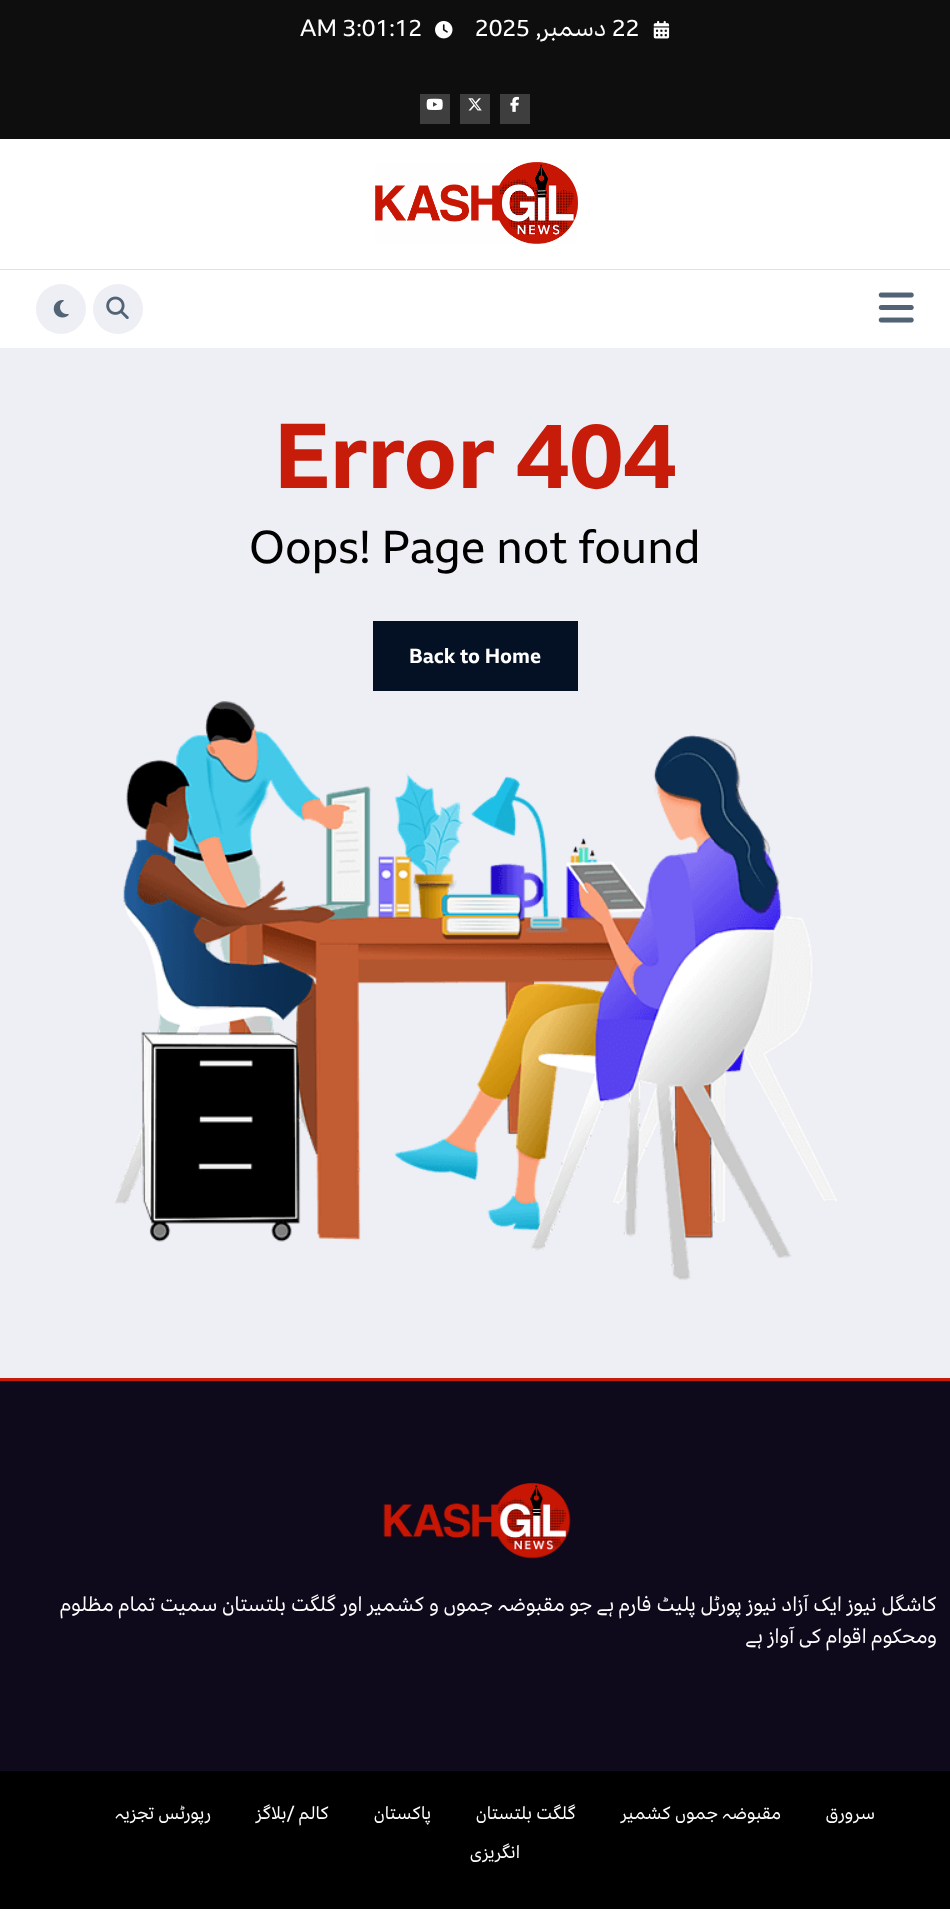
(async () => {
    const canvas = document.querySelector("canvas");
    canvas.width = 950;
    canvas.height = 1927;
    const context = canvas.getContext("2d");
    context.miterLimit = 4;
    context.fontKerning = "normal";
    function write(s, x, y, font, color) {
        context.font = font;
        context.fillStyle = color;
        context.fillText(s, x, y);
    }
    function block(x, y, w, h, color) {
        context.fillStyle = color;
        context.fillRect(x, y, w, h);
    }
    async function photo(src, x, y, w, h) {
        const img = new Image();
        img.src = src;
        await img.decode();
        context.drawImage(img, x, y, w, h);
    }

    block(0, 0, 950, 1927, "rgb(255, 255, 255)");
    block(0, 348, 950, 1030, "rgb(238, 238, 245)");
    block(0, 0, 950, 139, "rgb(14, 14, 14)");
    await photo("media/1.png", 653, 20, 17, 19);
    write("22", 612, 36, "23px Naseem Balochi", "rgb(255, 255, 255)");
    context.direction = "rtl";
    write("دسمبر,", 606, 36, "23px Naseem Balochi", "rgb(255, 255, 255)");
    context.direction = "ltr";
    write("2025", 475, 36, "23px Naseem Balochi", "rgb(255, 255, 255)");
    await photo("media/2.png", 435, 20, 18, 19);
    write("AM 3:01:12", 300, 36, "23px Naseem Balochi", "rgb(255, 255, 255)");
    block(500, 94, 30, 30, "rgb(62, 62, 62)");
    await photo("media/3.png", 510, 96, 9, 16);
    block(460, 94, 30, 30, "rgb(62, 62, 62)");
    await photo("media/4.png", 468, 98, 14, 13);
    block(420, 94, 30, 30, "rgb(62, 62, 62)");
    await photo("media/5.png", 426, 98, 17, 12);
    await photo("media/6.png", 375, 162, 203, 82);
    block(0, 269, 950, 1, "rgb(225, 225, 225)");
    await photo("media/7.png", 878, 292, 36, 31);
    context.fillStyle = "rgb(238, 238, 245)";
    context.beginPath();
    context.arc(118, 309, 25, 0, Math.PI * 2);
    context.fill();
    await photo("media/8.png", 106, 296, 23, 23);
    context.beginPath();
    context.arc(61, 309, 25, 0, Math.PI * 2);
    context.fill();
    await photo("media/9.png", 53, 300, 16, 18);
    write("Error 404", 274, 488, "bold 90px Naseem Balochi", "rgb(199, 28, 10)");
    write("Oops! Page not found", 249, 563, "45px Naseem Balochi", "rgb(0, 0, 0)");
    block(373, 621, 205, 70, "rgb(4, 17, 36)");
    write("Back to Home", 409, 663, "bold 20px Naseem Balochi", "rgb(255, 255, 255)");
    await photo("media/10.png", 115, 701, 722, 580);
    block(0, 1378, 950, 3, "rgb(199, 28, 10)");
    block(0, 1381, 950, 390, "rgb(14, 10, 28)");
    await photo("media/11.png", 383, 1483, 188, 76);
    context.direction = "rtl";
    write("کاشگل نیوز ایک آزاد نیوز پورٹل پلیٹ فارم ہے جو مقبوضہ جموں و کشمیر اور گلگت بلتستان سمیت تمام مظلوم", 937, 1611, "20px Naseem Balochi", "rgb(255, 255, 255)");
    write("ومحکوم اقوام کی آواز ہے", 937, 1643, "20px Naseem Balochi", "rgb(255, 255, 255)");
    block(0, 1771, 950, 138, "rgb(0, 0, 0)");
    write("سرورق", 875, 1819, "17.5px Naseem Balochi", "rgb(255, 255, 255)");
    write("مقبوضہ جموں کشمیر", 781, 1819, "17.5px Naseem Balochi", "rgb(255, 255, 255)");
    write("گلگت بلتستان", 576, 1819, "17.5px Naseem Balochi", "rgb(255, 255, 255)");
    write("پاکستان", 431, 1819, "17.5px Naseem Balochi", "rgb(255, 255, 255)");
    write("کالم /بلاگز", 329, 1819, "17.5px Naseem Balochi", "rgb(255, 255, 255)");
    write("رپورٹس تجزیہ", 211, 1819, "17.5px Naseem Balochi", "rgb(255, 255, 255)");
    write("انگریزی", 520, 1858, "17.5px Naseem Balochi", "rgb(255, 255, 255)");
})();
